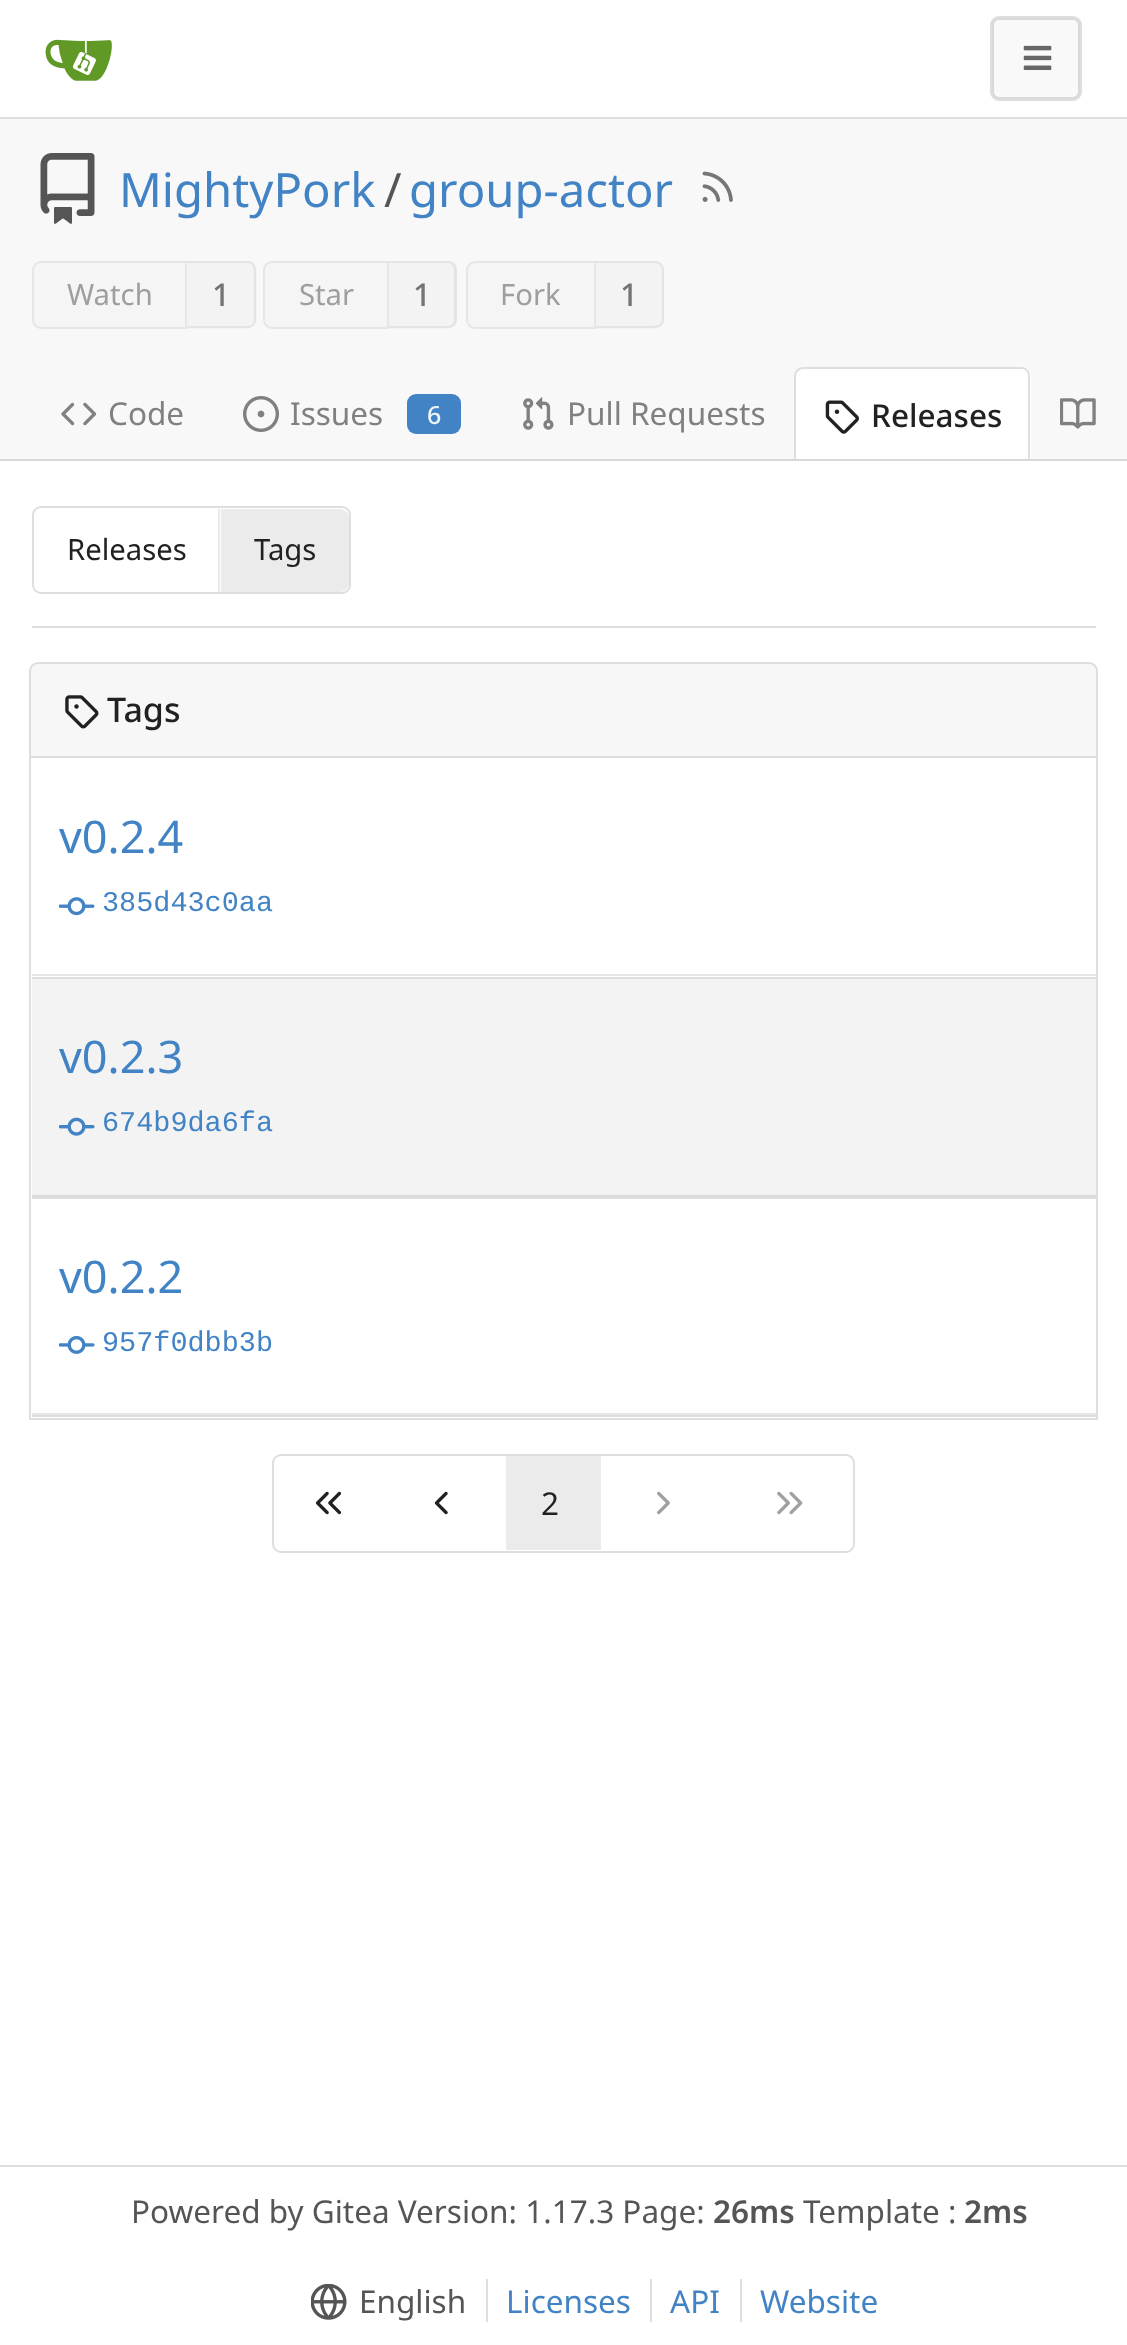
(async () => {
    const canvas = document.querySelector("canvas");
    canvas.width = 1127;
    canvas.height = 2345;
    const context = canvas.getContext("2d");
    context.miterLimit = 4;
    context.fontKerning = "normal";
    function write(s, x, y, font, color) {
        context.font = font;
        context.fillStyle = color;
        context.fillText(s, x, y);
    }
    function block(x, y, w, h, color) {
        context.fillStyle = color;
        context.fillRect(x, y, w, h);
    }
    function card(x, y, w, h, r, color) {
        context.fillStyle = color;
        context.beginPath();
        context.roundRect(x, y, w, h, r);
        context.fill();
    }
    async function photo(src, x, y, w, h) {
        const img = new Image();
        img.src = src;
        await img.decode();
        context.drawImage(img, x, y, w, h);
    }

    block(0, 0, 1127, 2345, "rgb(255, 255, 255)");
    block(0, 117, 1127, 2, "rgb(222, 222, 222)");
    await photo("media/1.png", 45, 39, 67, 42);
    card(990, 16, 92, 85, 9, "rgb(249, 249, 249)");
    context.beginPath();
    context.roundRect(993, 19, 86, 79, 6);
    context.strokeStyle = "rgb(217, 217, 217)";
    context.lineWidth = 2;
    context.stroke();
    context.beginPath();
    context.roundRect(991, 17, 90, 83, 8);
    context.strokeStyle = "rgba(0, 0, 0, 0.11)";
    context.stroke();
    await photo("media/2.png", 1023, 45, 29, 25);
    block(0, 119, 1127, 340, "rgb(248, 248, 248)");
    await photo("media/3.png", 40, 153, 55, 71);
    write("MightyPork", 119, 207, "47.25px Noto Sans", "rgb(65, 131, 196)");
    write("/", 384, 207, "47.25px Noto Sans", "rgb(85, 85, 85)");
    write("group-actor", 409, 207, "47.25px Noto Sans", "rgb(65, 131, 196)");
    await photo("media/4.png", 702, 171, 31, 31);
    context.fillStyle = "rgb(245, 245, 245)";
    context.beginPath();
    context.roundRect(33, 262, 153, 66, [8, 0, 0, 8]);
    context.fill();
    context.strokeStyle = "rgb(230, 230, 230)";
    context.stroke();
    write("Watch", 67, 305, "29.25px Noto Sans", "rgb(158, 158, 158)");
    context.fillStyle = "rgb(243, 243, 243)";
    context.beginPath();
    context.roundRect(187, 261, 70, 68, [0, 9, 9, 0]);
    context.fill();
    context.fillStyle = "rgb(228, 228, 228)";
    context.beginPath();
    context.moveTo(187, 261);
    context.lineTo(248, 261);
    context.bezierCurveTo(252, 261, 256, 265, 256, 270);
    context.lineTo(256, 320);
    context.bezierCurveTo(256, 324, 252, 328, 248, 328);
    context.lineTo(187, 328);
    context.closePath();
    context.moveTo(187, 263);
    context.lineTo(248, 263);
    context.bezierCurveTo(251, 263, 254, 266, 254, 270);
    context.lineTo(254, 320);
    context.bezierCurveTo(254, 323, 251, 326, 248, 326);
    context.lineTo(187, 326);
    context.closePath();
    context.fill("evenodd");
    write("1", 212, 306, "500 31.5px Noto Sans", "rgb(116, 116, 116)");
    context.fillStyle = "rgb(245, 245, 245)";
    context.beginPath();
    context.roundRect(264, 262, 124, 66, [8, 0, 0, 8]);
    context.fill();
    context.stroke();
    write("Star", 299, 305, "29.25px Noto Sans", "rgb(158, 158, 158)");
    context.fillStyle = "rgb(243, 243, 243)";
    context.beginPath();
    context.roundRect(389, 261, 68, 68, [0, 9, 9, 0]);
    context.fill();
    context.fillStyle = "rgb(228, 228, 228)";
    context.beginPath();
    context.moveTo(389, 261);
    context.lineTo(448, 261);
    context.bezierCurveTo(453, 261, 457, 265, 457, 270);
    context.lineTo(457, 320);
    context.bezierCurveTo(457, 324, 453, 328, 448, 328);
    context.lineTo(389, 328);
    context.closePath();
    context.moveTo(389, 263);
    context.lineTo(448, 263);
    context.bezierCurveTo(451, 263, 454, 266, 454, 270);
    context.lineTo(454, 320);
    context.bezierCurveTo(454, 323, 451, 326, 448, 326);
    context.lineTo(389, 326);
    context.closePath();
    context.fill("evenodd");
    write("1", 413, 306, "500 31.5px Noto Sans", "rgb(116, 116, 116)");
    context.fillStyle = "rgb(245, 245, 245)";
    context.beginPath();
    context.roundRect(467, 262, 128, 66, [8, 0, 0, 8]);
    context.fill();
    context.stroke();
    write("Fork", 500, 305, "29.25px Noto Sans", "rgb(158, 158, 158)");
    context.fillStyle = "rgb(243, 243, 243)";
    context.beginPath();
    context.roundRect(596, 261, 68, 68, [0, 9, 9, 0]);
    context.fill();
    context.fillStyle = "rgb(228, 228, 228)";
    context.beginPath();
    context.moveTo(596, 261);
    context.lineTo(655, 261);
    context.bezierCurveTo(660, 261, 664, 265, 664, 270);
    context.lineTo(664, 320);
    context.bezierCurveTo(664, 324, 660, 328, 655, 328);
    context.lineTo(596, 328);
    context.closePath();
    context.moveTo(596, 263);
    context.lineTo(655, 263);
    context.bezierCurveTo(658, 263, 662, 266, 662, 270);
    context.lineTo(662, 320);
    context.bezierCurveTo(662, 323, 658, 326, 655, 326);
    context.lineTo(596, 326);
    context.closePath();
    context.fill("evenodd");
    write("1", 620, 306, "500 31.5px Noto Sans", "rgb(116, 116, 116)");
    await photo("media/5.png", 61, 402, 36, 24);
    write("Code", 108, 425, "31.5px Noto Sans", "rgb(128, 128, 128)");
    await photo("media/6.png", 243, 396, 36, 36);
    write("Issues", 290, 425, "31.5px Noto Sans", "rgb(128, 128, 128)");
    card(407, 394, 54, 40, 9, "rgb(65, 131, 196)");
    write("6", 427, 424, "500 25px Noto Sans", "rgb(236, 243, 249)");
    await photo("media/7.png", 523, 397, 31, 33);
    write("Pull Requests", 567, 425, "31.5px Noto Sans", "rgb(128, 128, 128)");
    context.fillStyle = "rgb(255, 255, 255)";
    context.beginPath();
    context.roundRect(794, 367, 237, 92, [9, 9, 0, 0]);
    context.fill();
    context.save();
    context.beginPath();
    context.rect(32, 365, 1064, 94);
    context.clip();
    context.fillStyle = "rgb(222, 222, 222)";
    context.beginPath();
    context.moveTo(803, 367);
    context.lineTo(1022, 367);
    context.bezierCurveTo(1026, 367, 1030, 371, 1030, 376);
    context.lineTo(1030, 461);
    context.lineTo(794, 461);
    context.lineTo(794, 376);
    context.bezierCurveTo(794, 371, 798, 367, 803, 367);
    context.closePath();
    context.moveTo(803, 369);
    context.lineTo(1022, 369);
    context.bezierCurveTo(1025, 369, 1028, 372, 1028, 376);
    context.lineTo(1028, 461);
    context.lineTo(796, 461);
    context.lineTo(796, 376);
    context.bezierCurveTo(796, 372, 800, 369, 803, 369);
    context.closePath();
    context.fill("evenodd");
    context.restore();
    await photo("media/8.png", 825, 400, 34, 34);
    write("Releases", 871, 427, "500 31.5px Noto Sans", "rgb(33, 33, 33)");
    await photo("media/9.png", 1060, 398, 36, 31);
    block(0, 459, 1127, 2, "rgb(216, 216, 217)");
    context.beginPath();
    context.roundRect(33, 507, 317, 86, 8);
    context.strokeStyle = "rgb(222, 222, 222)";
    context.stroke();
    write("Releases", 67, 560, "29.25px Noto Sans", "rgb(33, 33, 33)");
    block(218, 509, 2, 83, "rgb(233, 233, 233)");
    context.fillStyle = "rgb(235, 235, 235)";
    context.beginPath();
    context.roundRect(221, 509, 128, 83, [0, 9, 9, 0]);
    context.fill();
    write("Tags", 254, 560, "29.25px Noto Sans", "rgb(33, 33, 33)");
    block(32, 626, 1064, 2, "rgb(222, 222, 222)");
    context.fillStyle = "rgb(247, 247, 247)";
    context.beginPath();
    context.roundRect(30, 663, 1067, 94, [8, 8, 0, 0]);
    context.fill();
    context.stroke();
    await photo("media/10.png", 65, 695, 34, 34);
    write("Tags", 107, 722, "500 34px Noto Sans", "rgb(33, 33, 33)");
    block(1096, 758, 2, 662, "rgb(222, 222, 222)");
    block(29, 1418, 1069, 2, "rgb(222, 222, 222)");
    block(29, 758, 2, 662, "rgb(222, 222, 222)");
    block(32, 974, 1064, 2, "rgb(230, 230, 230)");
    block(32, 977, 1064, 2, "rgb(222, 222, 222)");
    write("v0.2.4", 59, 853, "45px Noto Sans", "rgb(65, 131, 196)");
    await photo("media/11.png", 59, 897, 36, 19);
    write("385d43c0aa", 102, 911, "28.5px Liberation Mono", "rgb(65, 131, 196)");
    block(32, 979, 1064, 216, "rgb(243, 243, 243)");
    block(32, 1195, 1064, 2, "rgb(219, 219, 219)");
    block(32, 1197, 1064, 2, "rgb(222, 222, 222)");
    write("v0.2.3", 59, 1073, "45px Noto Sans", "rgb(65, 131, 196)");
    await photo("media/12.png", 59, 1117, 36, 19);
    write("674b9da6fa", 102, 1131, "28.5px Liberation Mono", "rgb(65, 131, 196)");
    block(32, 1413, 1064, 2, "rgb(230, 230, 230)");
    block(32, 1415, 1064, 2, "rgb(222, 222, 222)");
    write("v0.2.2", 59, 1293, "45px Noto Sans", "rgb(65, 131, 196)");
    await photo("media/13.png", 59, 1335, 36, 19);
    write("957f0dbb3b", 102, 1351, "28.5px Liberation Mono", "rgb(65, 131, 196)");
    context.beginPath();
    context.roundRect(273, 1455, 581, 97, 8);
    context.stroke();
    await photo("media/14.png", 315, 1491, 27, 24);
    await photo("media/15.png", 434, 1491, 14, 24);
    block(506, 1456, 95, 94, "rgb(235, 235, 235)");
    write("2", 541, 1515, "31.5px Noto Sans", "rgb(33, 33, 33)");
    await photo("media/16.png", 657, 1491, 13, 24);
    await photo("media/17.png", 777, 1491, 26, 24);
    block(0, 2165, 1127, 2, "rgb(222, 222, 222)");
    write("Powered by Gitea Version: 1.17.3 Page:", 131, 2223, "31.5px Noto Sans", "rgb(85, 85, 85)");
    write("26ms", 713, 2223, "600 31.5px Noto Sans", "rgb(85, 85, 85)");
    write("Template :", 803, 2223, "31.5px Noto Sans", "rgb(85, 85, 85)");
    write("2ms", 964, 2223, "600 31.5px Noto Sans", "rgb(85, 85, 85)");
    await photo("media/18.png", 311, 2284, 36, 36);
    write("English", 359, 2313, "31.5px Noto Sans", "rgb(85, 85, 85)");
    write("Licenses", 506, 2313, "31.5px Noto Sans", "rgb(65, 131, 196)");
    block(486, 2279, 2, 43, "rgb(222, 222, 222)");
    write("API", 670, 2313, "31.5px Noto Sans", "rgb(65, 131, 196)");
    block(650, 2279, 2, 43, "rgb(222, 222, 222)");
    write("Website", 760, 2313, "31.5px Noto Sans", "rgb(65, 131, 196)");
    block(740, 2279, 2, 43, "rgb(222, 222, 222)");
})();
